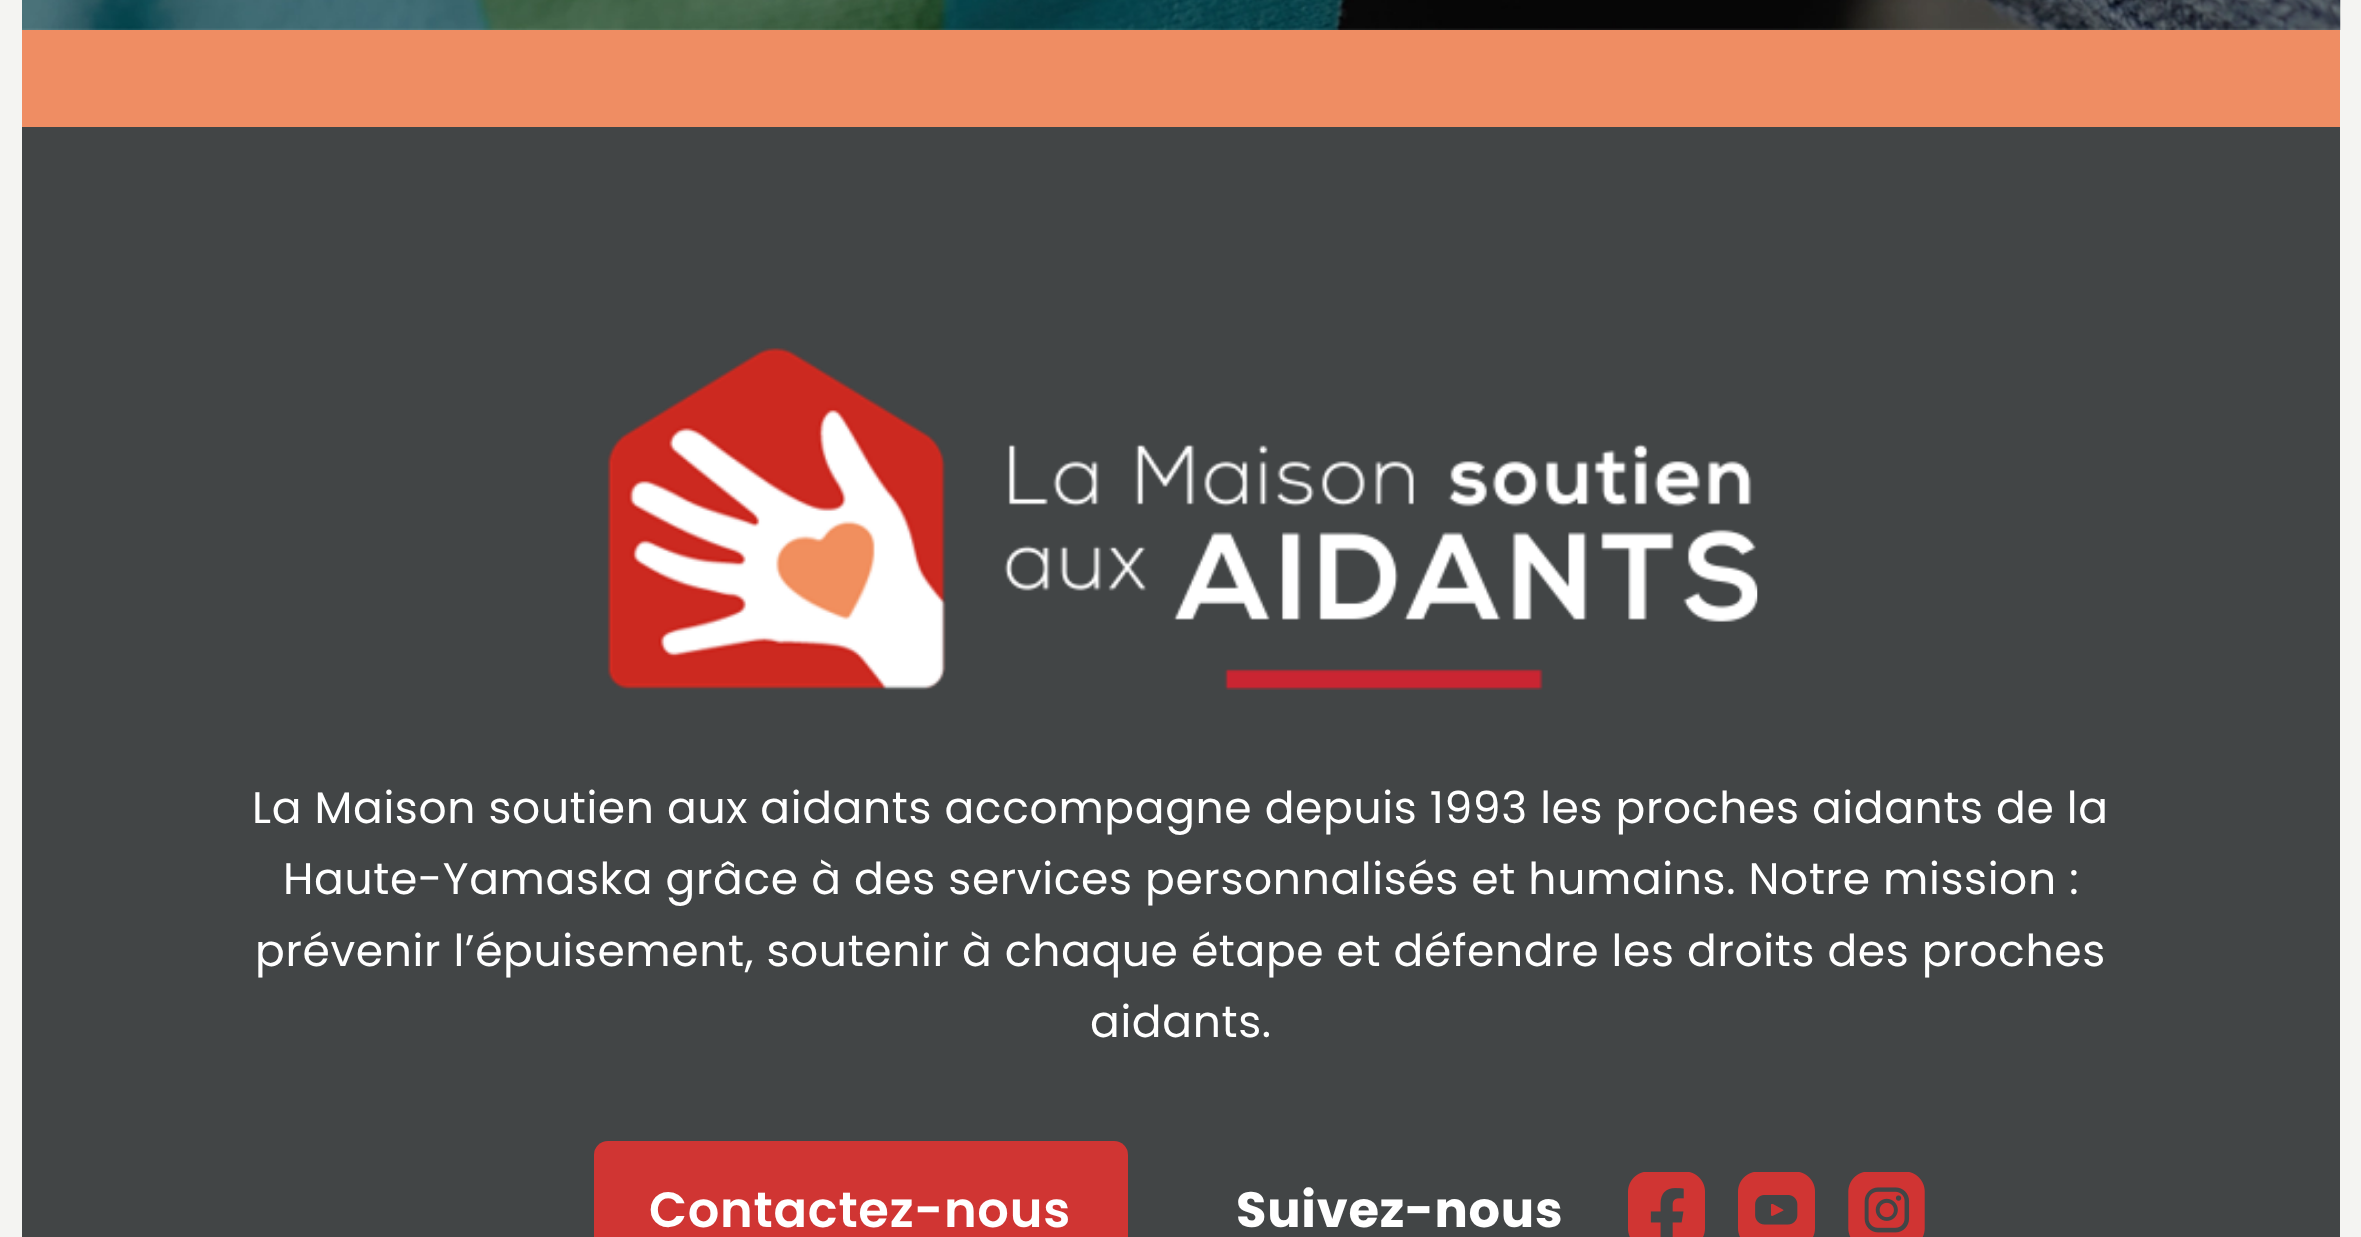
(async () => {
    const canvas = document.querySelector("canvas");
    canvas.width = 2361;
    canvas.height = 1237;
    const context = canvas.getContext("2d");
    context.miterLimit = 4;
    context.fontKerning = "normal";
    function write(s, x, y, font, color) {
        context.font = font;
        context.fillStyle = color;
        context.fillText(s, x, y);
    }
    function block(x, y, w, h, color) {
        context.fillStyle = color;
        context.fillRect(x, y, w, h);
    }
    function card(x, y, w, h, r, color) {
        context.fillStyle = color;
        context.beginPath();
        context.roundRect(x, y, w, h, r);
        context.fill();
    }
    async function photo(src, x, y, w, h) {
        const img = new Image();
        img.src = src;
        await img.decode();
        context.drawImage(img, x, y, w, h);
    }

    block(0, 0, 2361, 1237, "rgb(244, 244, 242)");
    await photo("media/1.png", 22, 0, 2319, 30);
    block(22, 30, 2318, 97, "rgb(239, 141, 99)");
    block(22, 127, 2318, 1110, "rgb(66, 69, 70)");
    await photo("media/2.png", 607, 347, 1151, 343);
    context.letterSpacing = "0.65px";
    write("La Maison soutien aux aidants accompagne depuis 1993 les proches aidants de la", 252, 823, "44px Poppins", "rgb(255, 255, 255)");
    write("Haute-Yamaska grâce à des services personnalisés et humains. Notre mission :", 283, 894, "44px Poppins", "rgb(255, 255, 255)");
    write("prévenir l’épuisement, soutenir à chaque étape et défendre les droits des proches", 255, 966, "44px Poppins", "rgb(255, 255, 255)");
    write("aidants.", 1090, 1037, "44px Poppins", "rgb(255, 255, 255)");
    card(594, 1141, 534, 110, 14, "rgb(208, 53, 51)");
    context.letterSpacing = "0.75px";
    write("Contactez-nous", 649, 1227, "600 49.5px Poppins", "rgb(255, 255, 255)");
    write("Suivez-nous", 1236, 1227, "bold 49.5px Poppins", "rgb(255, 255, 255)");
    await photo("media/3.png", 1628, 1172, 77, 65);
    await photo("media/4.png", 1738, 1172, 77, 65);
    await photo("media/5.png", 1848, 1172, 77, 65);
})();
